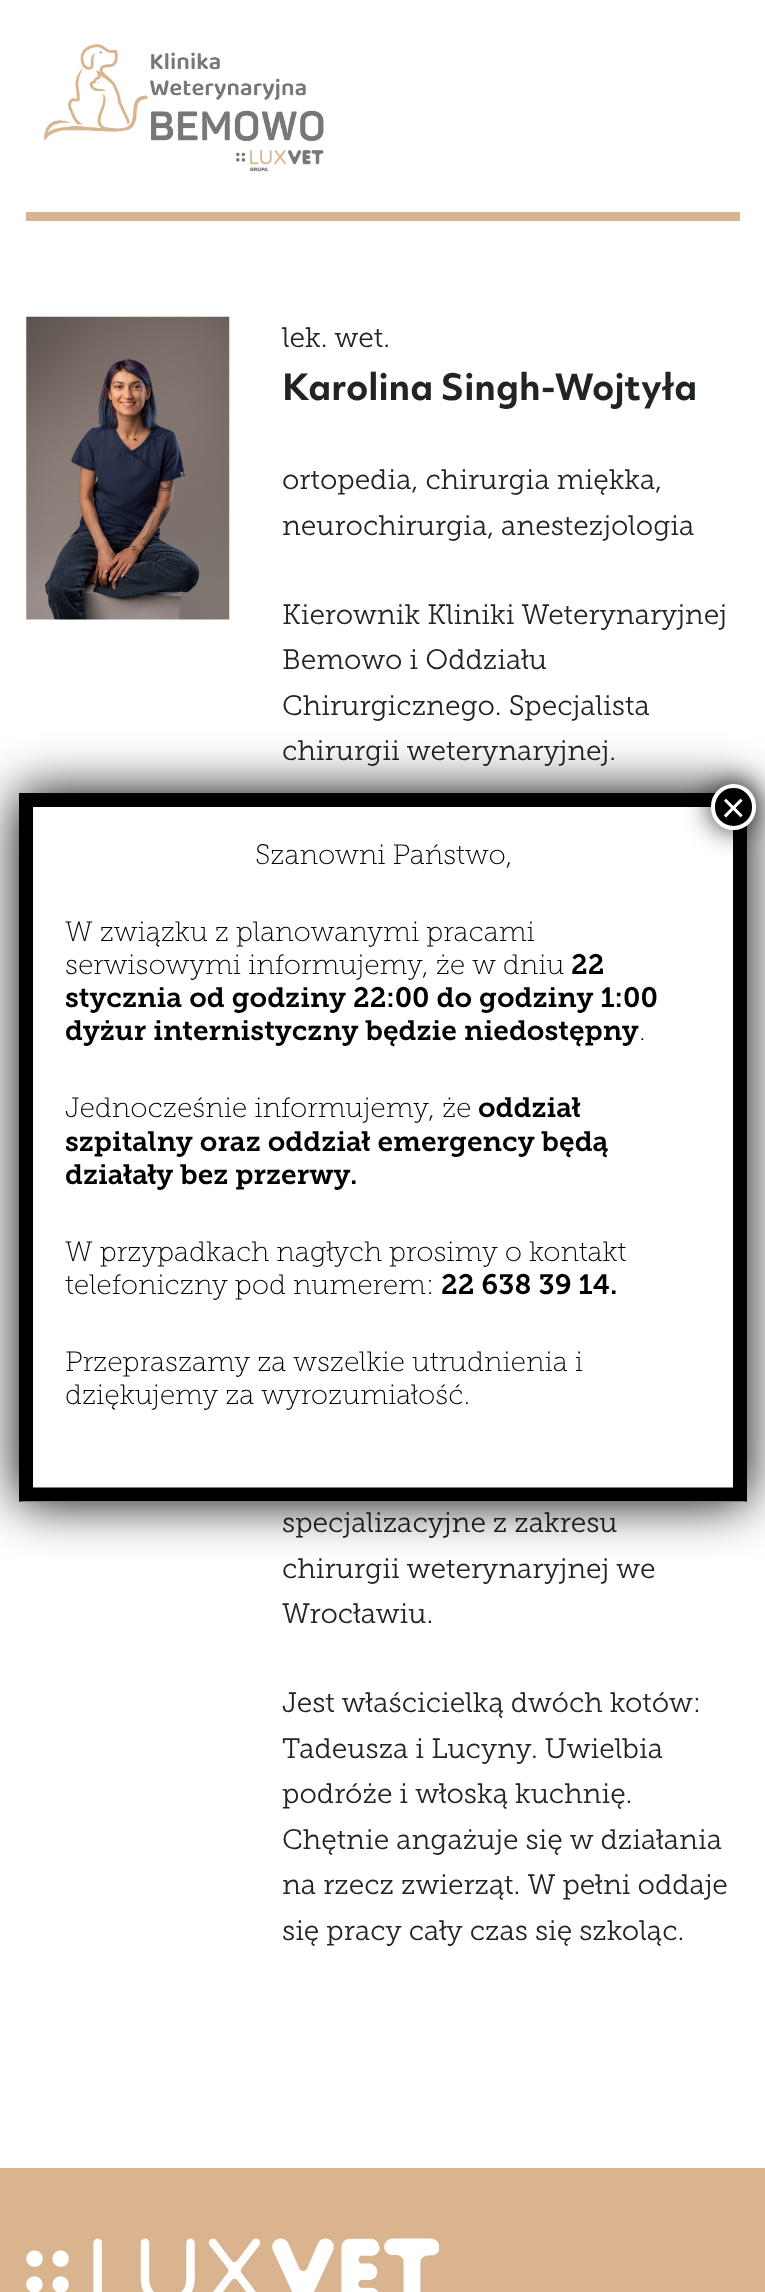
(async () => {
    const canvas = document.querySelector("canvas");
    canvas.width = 765;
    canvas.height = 2292;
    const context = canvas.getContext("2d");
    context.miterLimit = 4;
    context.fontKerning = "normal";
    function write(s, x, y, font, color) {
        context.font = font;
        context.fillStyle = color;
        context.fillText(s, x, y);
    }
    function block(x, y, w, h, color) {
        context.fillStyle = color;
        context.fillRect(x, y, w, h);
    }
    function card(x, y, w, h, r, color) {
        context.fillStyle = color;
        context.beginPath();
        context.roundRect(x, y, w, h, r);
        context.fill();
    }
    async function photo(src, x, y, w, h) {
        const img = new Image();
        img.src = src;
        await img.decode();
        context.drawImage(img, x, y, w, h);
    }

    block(0, 0, 765, 2292, "rgb(255, 255, 255)");
    await photo("media/1.png", 44, 44, 280, 128);
    block(26, 212, 714, 9, "rgb(217, 180, 143)");
    await photo("media/2.png", 26, 316, 204, 304);
    write("lek. wet.", 282, 347, "300 28px 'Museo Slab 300'", "rgb(32, 36, 38)");
    write("Karolina Singh-Wojtyła", 282, 400, "bold 35px 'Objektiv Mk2'", "rgb(32, 36, 38)");
    write("ortopedia, chirurgia miękka,", 282, 489, "300 28px 'Museo Slab 300'", "rgb(32, 36, 38)");
    write("neurochirurgia, anestezjologia", 282, 535, "300 28px 'Museo Slab 300'", "rgb(32, 36, 38)");
    write("Kierownik Kliniki Weterynaryjnej", 282, 624, "300 28px 'Museo Slab 300'", "rgb(32, 36, 38)");
    write("Bemowo i Oddziału", 282, 669, "300 28px 'Museo Slab 300'", "rgb(32, 36, 38)");
    write("Chirurgicznego. Specjalista", 282, 715, "300 28px 'Museo Slab 300'", "rgb(32, 36, 38)");
    write("chirurgii weterynaryjnej.", 282, 760, "300 28px 'Museo Slab 300'", "rgb(32, 36, 38)");
    write("specjalizacyjne z zakresu", 282, 1532, "300 28px 'Museo Slab 300'", "rgb(32, 36, 38)");
    write("chirurgii weterynaryjnej we", 282, 1578, "300 28px 'Museo Slab 300'", "rgb(32, 36, 38)");
    write("Wrocławiu.", 282, 1623, "300 28px 'Museo Slab 300'", "rgb(32, 36, 38)");
    write("Jest właścicielką dwóch kotów:", 282, 1712, "300 28px 'Museo Slab 300'", "rgb(32, 36, 38)");
    write("Tadeusza i Lucyny. Uwielbia", 282, 1758, "300 28px 'Museo Slab 300'", "rgb(32, 36, 38)");
    write("podróże i włoską kuchnię.", 282, 1803, "300 28px 'Museo Slab 300'", "rgb(32, 36, 38)");
    write("Chętnie angażuje się w działania", 282, 1849, "300 28px 'Museo Slab 300'", "rgb(32, 36, 38)");
    write("na rzecz zwierząt. W pełni oddaje", 282, 1894, "300 28px 'Museo Slab 300'", "rgb(32, 36, 38)");
    write("się pracy cały czas się szkoląc.", 282, 1940, "300 28px 'Museo Slab 300'", "rgb(32, 36, 38)");
    context.fillStyle = "rgb(2, 2, 2)";
    context.filter = "blur(26px)";
    context.beginPath();
    context.roundRect(19, 793, 728, 709, 5);
    context.fill();
    context.filter = "none";
    card(19, 793, 728, 709, 5, "rgb(255, 255, 255)");
    context.beginPath();
    context.moveTo(26, 800);
    context.lineTo(740, 800);
    context.lineTo(740, 1494.5);
    context.lineTo(26, 1494.5);
    context.closePath();
    context.strokeStyle = "rgb(0, 0, 0)";
    context.lineWidth = 14;
    context.stroke();
    context.fillStyle = "rgba(2, 2, 2, 0.75)";
    context.filter = "blur(13px)";
    context.beginPath();
    context.roundRect(709, 782, 49, 49, 24.5);
    context.fill();
    context.filter = "none";
    context.fillStyle = "rgb(0, 0, 0)";
    context.beginPath();
    context.roundRect(713, 786, 41, 42, 20.5);
    context.fill();
    context.strokeStyle = "rgb(255, 255, 255)";
    context.lineWidth = 4;
    context.stroke();
    write("×", 721, 822, "42px Liberation Sans", "rgb(255, 255, 255)");
    write("Szanowni Państwo,", 255, 864, "300 28px 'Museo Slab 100'", "rgb(0, 0, 0)");
    write("W związku z planowanymi pracami", 65, 941, "300 28px 'Museo Slab 100'", "rgb(0, 0, 0)");
    write("serwisowymi informujemy, że w dniu", 65, 974, "300 28px 'Museo Slab 100'", "rgb(0, 0, 0)");
    write("22", 571, 974, "600 28px 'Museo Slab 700'", "rgb(0, 0, 0)");
    write("stycznia od godziny 22:00 do godziny 1:00", 65, 1007, "600 28px 'Museo Slab 700'", "rgb(0, 0, 0)");
    write("dyżur internistyczny będzie niedostępny", 65, 1040, "600 28px 'Museo Slab 700'", "rgb(0, 0, 0)");
    write(".", 639, 1040, "300 28px 'Museo Slab 100'", "rgb(0, 0, 0)");
    write("Jednocześnie informujemy, że", 65, 1117, "300 28px 'Museo Slab 100'", "rgb(0, 0, 0)");
    write("oddział", 478, 1117, "600 28px 'Museo Slab 700'", "rgb(0, 0, 0)");
    write("szpitalny oraz oddział emergency będą", 65, 1151, "600 28px 'Museo Slab 700'", "rgb(0, 0, 0)");
    write("działały bez przerwy.", 65, 1184, "600 28px 'Museo Slab 700'", "rgb(0, 0, 0)");
    write("W przypadkach nagłych prosimy o kontakt", 65, 1261, "300 28px 'Museo Slab 100'", "rgb(0, 0, 0)");
    write("telefoniczny pod numerem:", 65, 1294, "300 28px 'Museo Slab 100'", "rgb(0, 0, 0)");
    write("22 638 39 14.", 441, 1294, "600 28px 'Museo Slab 700'", "rgb(0, 0, 0)");
    write("Przepraszamy za wszelkie utrudnienia i", 65, 1371, "300 28px 'Museo Slab 100'", "rgb(0, 0, 0)");
    write("dziękujemy za wyrozumiałość.", 65, 1404, "300 28px 'Museo Slab 100'", "rgb(0, 0, 0)");
    block(0, 2168, 765, 124, "rgb(217, 180, 143)");
    await photo("media/3.png", 26, 2238, 413, 54);
})();
